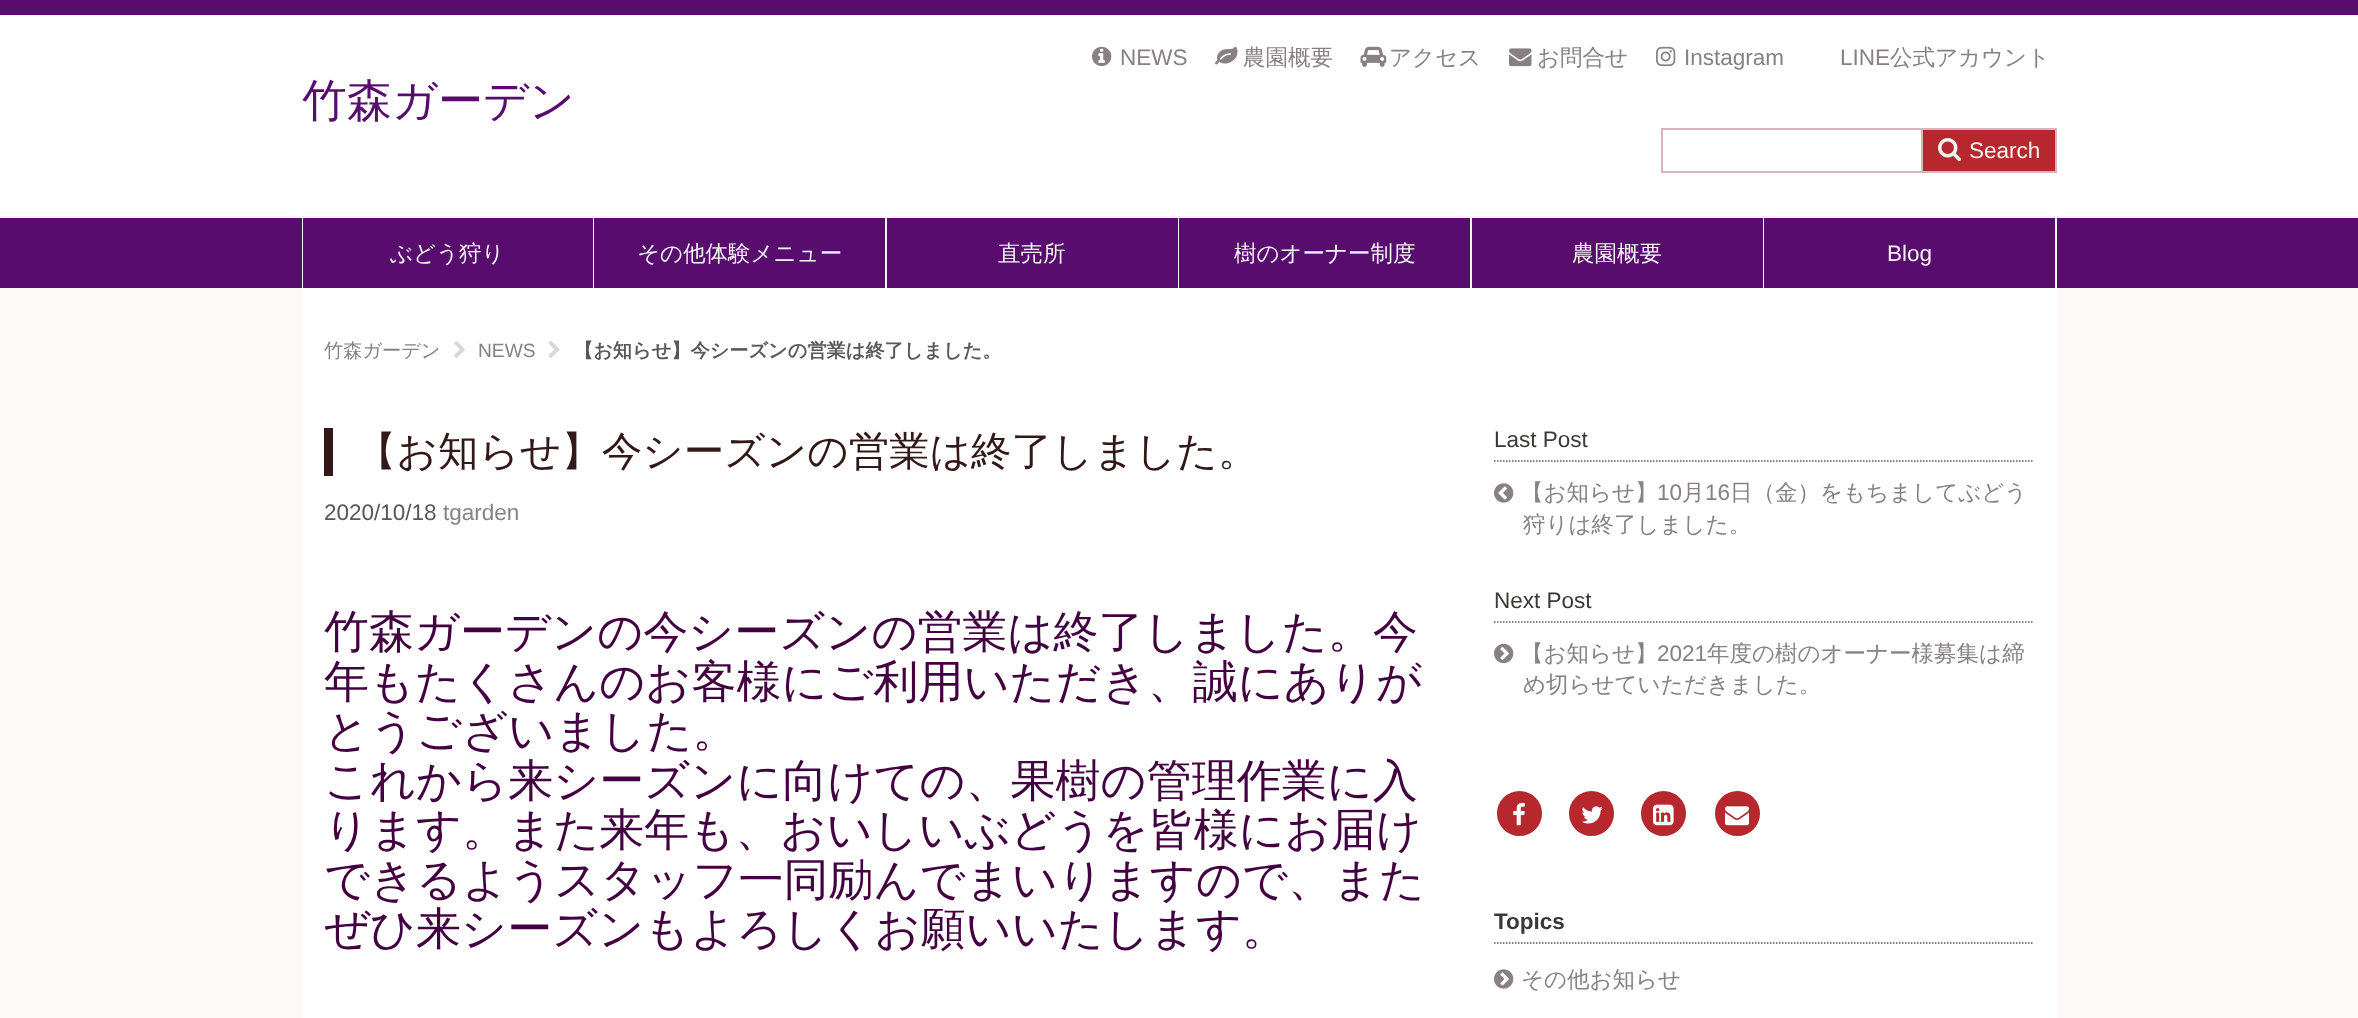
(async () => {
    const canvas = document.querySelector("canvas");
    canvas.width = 2358;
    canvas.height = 1018;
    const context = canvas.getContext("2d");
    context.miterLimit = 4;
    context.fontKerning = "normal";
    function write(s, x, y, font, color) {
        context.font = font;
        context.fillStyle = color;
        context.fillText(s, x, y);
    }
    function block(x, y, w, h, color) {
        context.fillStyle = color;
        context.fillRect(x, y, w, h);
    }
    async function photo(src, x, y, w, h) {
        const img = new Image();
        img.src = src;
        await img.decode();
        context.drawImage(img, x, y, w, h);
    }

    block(0, 0, 2358, 1018, "rgb(255, 255, 255)");
    block(0, 0, 2358, 15, "rgb(87, 12, 110)");
    write("竹森ガーデン", 302, 116, "500 45px WenQuanYi Zen Hei", "rgb(87, 12, 110)");
    await photo("media/1.png", 1092, 46, 20, 21);
    write("NEWS", 1120, 65, "22.5px Liberation Sans", "rgb(136, 128, 132)");
    await photo("media/2.png", 1215, 46, 23, 19);
    write("農園概要", 1243, 65, "500 22.5px WenQuanYi Zen Hei", "rgb(136, 128, 132)");
    await photo("media/3.png", 1360, 46, 27, 21);
    write("アクセス", 1389, 65, "500 22.5px WenQuanYi Zen Hei", "rgb(136, 128, 132)");
    await photo("media/4.png", 1509, 48, 23, 19);
    write("お問合せ", 1537, 65, "500 22.5px WenQuanYi Zen Hei", "rgb(136, 128, 132)");
    await photo("media/5.png", 1656, 46, 20, 21);
    write("Instagram", 1684, 65, "22.5px Liberation Sans", "rgb(136, 128, 132)");
    write("LINE", 1840, 65, "22.5px Liberation Sans", "rgb(136, 128, 132)");
    write("公式アカウント", 1890, 65, "500 22.5px WenQuanYi Zen Hei", "rgb(136, 128, 132)");
    context.strokeStyle = "rgb(213, 182, 187)";
    context.lineWidth = 2;
    context.strokeRect(1662, 129, 260, 43);
    block(1923, 130, 132, 41, "rgb(183, 40, 46)");
    await photo("media/6.png", 1938, 138, 23, 23);
    block(1923, 128, 134, 2, "rgb(213, 182, 187)");
    block(2055, 128, 2, 45, "rgb(213, 182, 187)");
    block(1923, 171, 134, 2, "rgb(213, 182, 187)");
    write("Search", 1969, 158, "22.5px Liberation Sans", "rgb(243, 243, 242)");
    block(0, 218, 2358, 70, "rgb(87, 12, 110)");
    block(593, 218, 1, 70, "rgb(243, 243, 242)");
    block(302, 218, 1, 70, "rgb(243, 243, 242)");
    write("ぶどう狩り", 390, 261, "500 22.5px WenQuanYi Zen Hei", "rgb(243, 243, 242)");
    block(885, 218, 2, 70, "rgb(243, 243, 242)");
    write("その他体験メニュー", 637, 261, "500 22.5px WenQuanYi Zen Hei", "rgb(243, 243, 242)");
    block(1178, 218, 1, 70, "rgb(243, 243, 242)");
    write("直売所", 998, 261, "500 22.5px WenQuanYi Zen Hei", "rgb(243, 243, 242)");
    block(1470, 218, 2, 70, "rgb(243, 243, 242)");
    write("樹のオーナー制度", 1234, 261, "500 22.5px WenQuanYi Zen Hei", "rgb(243, 243, 242)");
    block(1763, 218, 1, 70, "rgb(243, 243, 242)");
    write("農園概要", 1572, 261, "500 22.5px WenQuanYi Zen Hei", "rgb(243, 243, 242)");
    block(2055, 218, 2, 70, "rgb(243, 243, 242)");
    write("Blog", 1887, 261, "22.5px Liberation Sans", "rgb(243, 243, 242)");
    block(0, 288, 2358, 730, "rgb(254, 250, 250)");
    block(302, 288, 1755, 730, "rgb(255, 255, 255)");
    write("竹森ガーデン", 324, 357, "500 19.2px WenQuanYi Zen Hei", "rgb(136, 128, 132)");
    await photo("media/7.png", 454, 341, 11, 17);
    write("NEWS", 478, 357, "19.2px Liberation Sans", "rgb(136, 128, 132)");
    await photo("media/8.png", 548, 341, 12, 17);
    write("【お知らせ】今シーズンの営業は終了しました。", 574, 357, "bold 19.2px WenQuanYi Zen Hei", "rgb(89, 88, 87)");
    block(324, 428, 9, 48, "rgb(51, 24, 24)");
    write("【お知らせ】今シーズンの営業は終了しました。", 356, 465, "500 40.5px WenQuanYi Zen Hei", "rgb(51, 24, 24)");
    write("2020/10/18", 324, 520, "22.5px Liberation Sans", "rgb(89, 88, 87)");
    write("tgarden", 443, 520, "22.5px Liberation Sans", "rgb(136, 128, 132)");
    write("竹森ガーデンの今シーズンの営業は終了しました。今", 324, 647, "500 45px WenQuanYi Zen Hei", "rgb(66, 0, 64)");
    write("年もたくさんのお客様にご利用いただき、誠にありが", 324, 697, "500 45px WenQuanYi Zen Hei", "rgb(66, 0, 64)");
    write("とうございました。", 324, 746, "500 45px WenQuanYi Zen Hei", "rgb(66, 0, 64)");
    write("これから来シーズンに向けての、果樹の管理作業に入", 324, 796, "500 45px WenQuanYi Zen Hei", "rgb(66, 0, 64)");
    write("ります。また来年も、おいしいぶどうを皆様にお届け", 324, 845, "500 45px WenQuanYi Zen Hei", "rgb(66, 0, 64)");
    write("できるようスタッフ一同励んでまいりますので、また", 324, 895, "500 45px WenQuanYi Zen Hei", "rgb(66, 0, 64)");
    write("ぜひ来シーズンもよろしくお願いいたします。", 324, 944, "500 45px WenQuanYi Zen Hei", "rgb(66, 0, 64)");
    context.beginPath();
    context.moveTo(1494, 461);
    context.lineTo(2034, 461);
    context.strokeStyle = "rgb(89, 88, 87)";
    context.lineWidth = 1.5;
    context.setLineDash([1.5, 1.5]);
    context.stroke();
    write("Last Post", 1494, 447, "22.5px Liberation Sans", "rgb(58, 57, 55)");
    await photo("media/9.png", 1494, 483, 20, 20);
    write("【お知らせ】", 1521, 500, "500 22.5px WenQuanYi Zen Hei", "rgb(136, 128, 132)");
    write("10", 1657, 500, "22.5px Liberation Sans", "rgb(136, 128, 132)");
    write("月", 1682, 500, "500 22.5px WenQuanYi Zen Hei", "rgb(136, 128, 132)");
    write("16", 1705, 500, "22.5px Liberation Sans", "rgb(136, 128, 132)");
    write("日（金）をもちましてぶどう", 1730, 500, "500 22.5px WenQuanYi Zen Hei", "rgb(136, 128, 132)");
    write("狩りは終了しました。", 1523, 532, "500 22.5px WenQuanYi Zen Hei", "rgb(136, 128, 132)");
    context.beginPath();
    context.moveTo(1494, 622);
    context.lineTo(2034, 622);
    context.stroke();
    write("Next Post", 1494, 608, "22.5px Liberation Sans", "rgb(58, 57, 55)");
    await photo("media/10.png", 1494, 643, 20, 21);
    write("【お知らせ】", 1521, 661, "500 22.5px WenQuanYi Zen Hei", "rgb(136, 128, 132)");
    write("2021", 1657, 661, "22.5px Liberation Sans", "rgb(136, 128, 132)");
    write("年度の樹のオーナー様募集は締", 1707, 661, "500 22.5px WenQuanYi Zen Hei", "rgb(136, 128, 132)");
    write("め切らせていただきました。", 1523, 692, "500 22.5px WenQuanYi Zen Hei", "rgb(136, 128, 132)");
    context.fillStyle = "rgb(183, 40, 46)";
    context.beginPath();
    context.arc(1519.5, 813.5, 21, 0, Math.PI * 2);
    context.fill();
    context.strokeStyle = "rgb(183, 40, 46)";
    context.lineWidth = 3;
    context.setLineDash([]);
    context.stroke();
    await photo("media/11.png", 1513, 802, 12, 24);
    context.beginPath();
    context.arc(1591.5, 813.5, 21, 0, Math.PI * 2);
    context.fill();
    context.stroke();
    await photo("media/12.png", 1581, 806, 22, 18);
    context.beginPath();
    context.arc(1663.5, 813.5, 21, 0, Math.PI * 2);
    context.fill();
    context.stroke();
    await photo("media/13.png", 1653, 804, 21, 22);
    context.beginPath();
    context.arc(1737.5, 813.5, 21, 0, Math.PI * 2);
    context.fill();
    context.stroke();
    await photo("media/14.png", 1725, 806, 24, 20);
    context.beginPath();
    context.moveTo(1494, 943);
    context.lineTo(2034, 943);
    context.strokeStyle = "rgb(89, 88, 87)";
    context.lineWidth = 1.5;
    context.setLineDash([1.5, 1.5]);
    context.stroke();
    write("Topics", 1494, 929, "bold 22.5px Liberation Sans", "rgb(58, 57, 55)");
    await photo("media/15.png", 1494, 969, 20, 20);
    write("その他お知らせ", 1521, 987, "500 22.5px WenQuanYi Zen Hei", "rgb(136, 128, 132)");
})();
